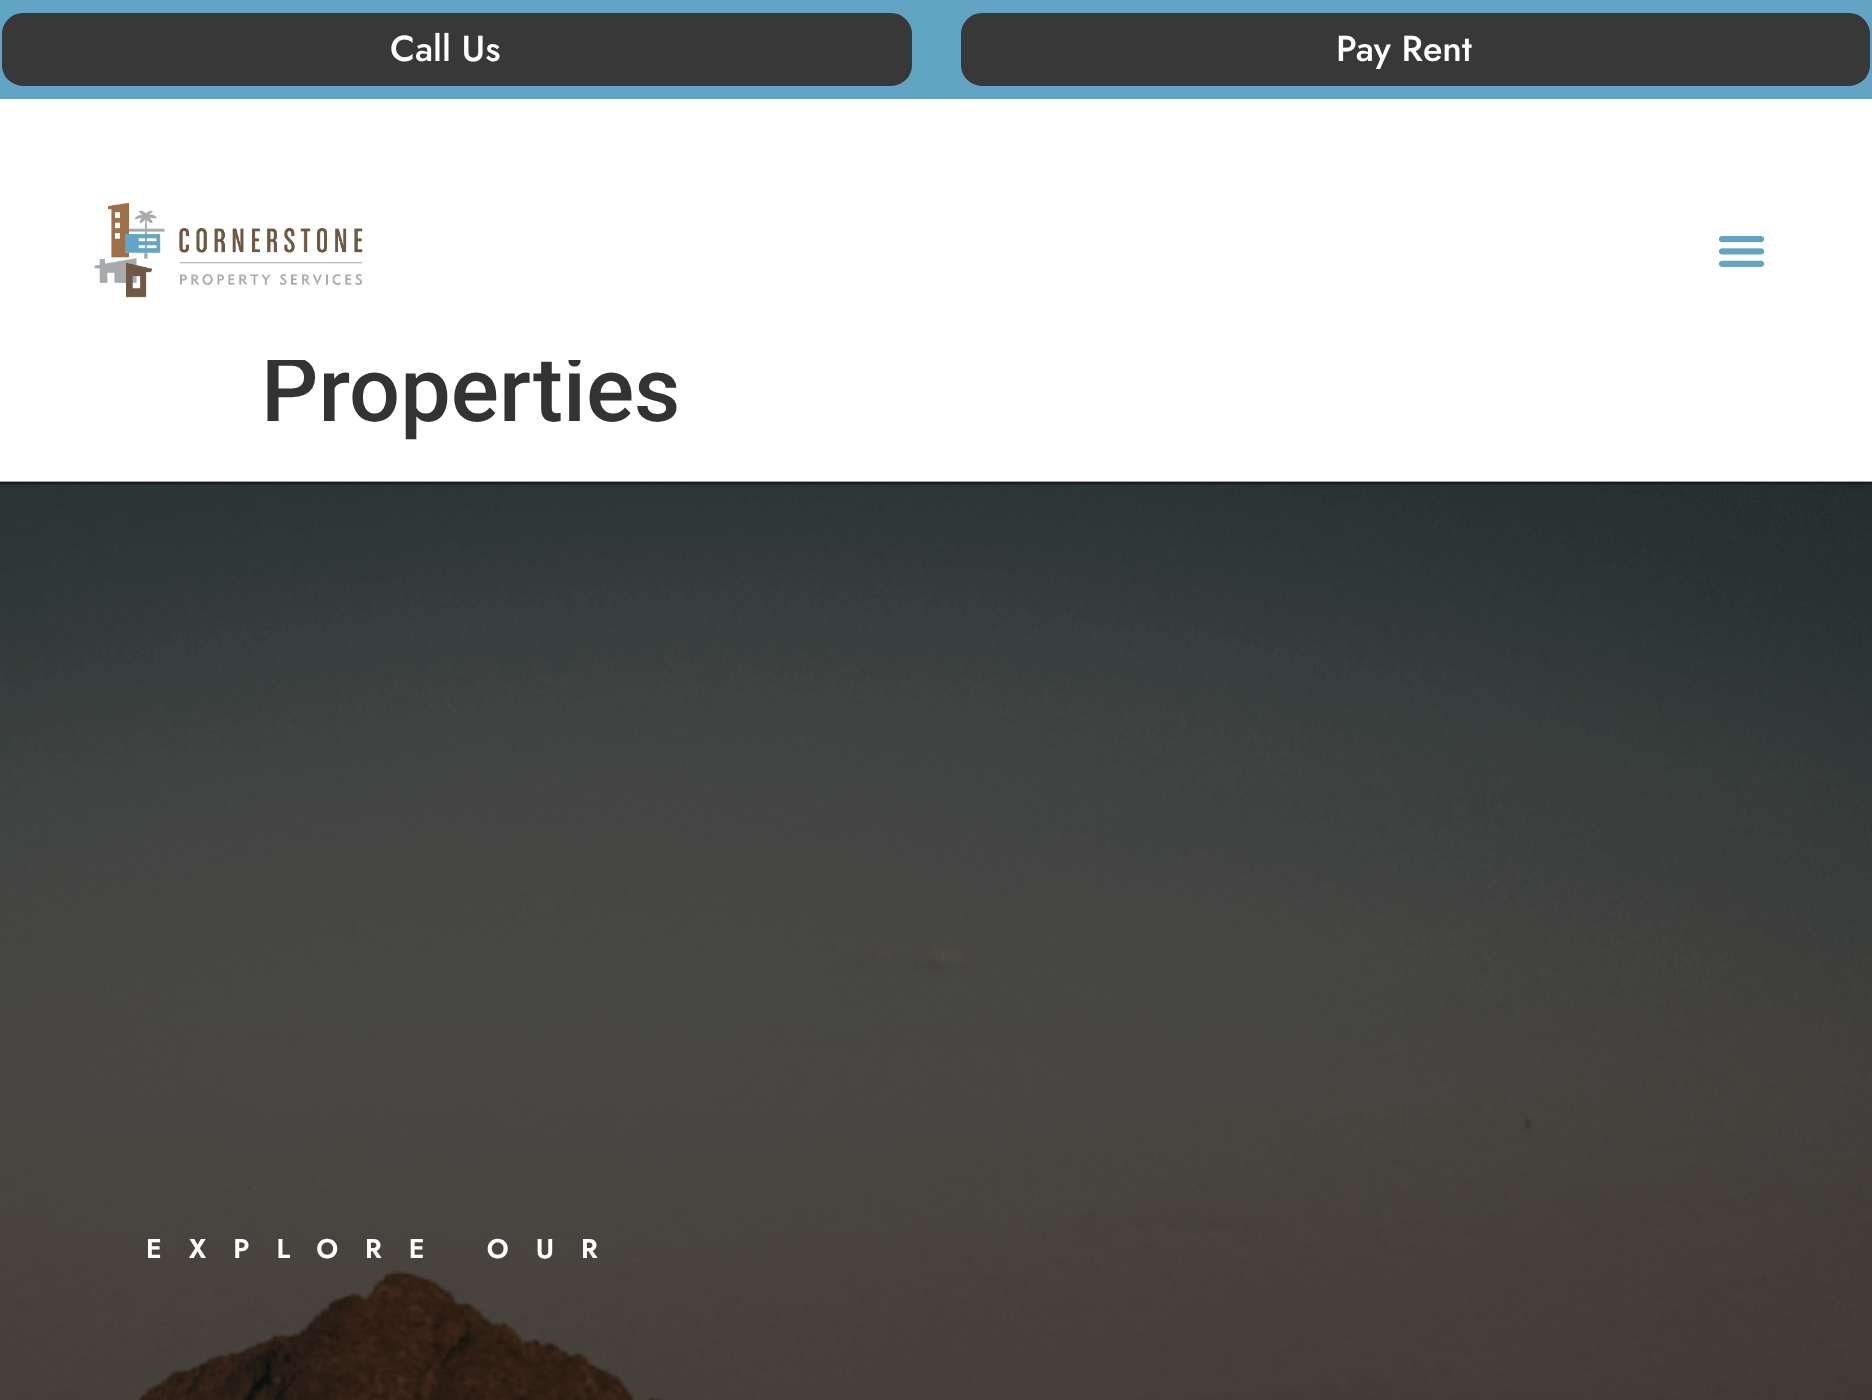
(async () => {
    const canvas = document.querySelector("canvas");
    canvas.width = 1872;
    canvas.height = 1400;
    const context = canvas.getContext("2d");
    context.miterLimit = 4;
    context.fontKerning = "normal";
    function write(s, x, y, font, color) {
        context.font = font;
        context.fillStyle = color;
        context.fillText(s, x, y);
    }
    function block(x, y, w, h, color) {
        context.fillStyle = color;
        context.fillRect(x, y, w, h);
    }
    async function photo(src, x, y, w, h) {
        const img = new Image();
        img.src = src;
        await img.decode();
        context.drawImage(img, x, y, w, h);
    }

    block(0, 0, 1872, 1400, "rgb(255, 255, 255)");
    block(0, 0, 1872, 99, "rgb(98, 164, 196)");
    context.fillStyle = "rgb(56, 56, 56)";
    context.beginPath();
    context.roundRect(1, 12, 912, 75, 22);
    context.fill();
    context.strokeStyle = "rgb(98, 164, 196)";
    context.lineWidth = 2;
    context.stroke();
    write("Call Us", 390, 61, "500 36px Jost", "rgb(255, 255, 255)");
    context.fillStyle = "rgb(56, 56, 56)";
    context.beginPath();
    context.roundRect(960, 12, 911, 75, 22);
    context.fill();
    context.stroke();
    write("Pay Rent", 1336, 61, "500 36px Jost", "rgb(255, 255, 255)");
    write("Properties", 261, 421, "500 90px Roboto", "rgb(51, 51, 51)");
    block(267, 355, 314, 5, "rgb(255, 255, 255)");
    await photo("media/1.png", 94, 202, 269, 96);
    await photo("media/2.png", 1718, 236, 47, 31);
    await photo("media/3.png", 0, 481, 1872, 919);
    context.letterSpacing = "27px";
    write("EXPLORE OUR", 146, 1258, "600 27px Jost", "rgb(255, 255, 255)");
})();
